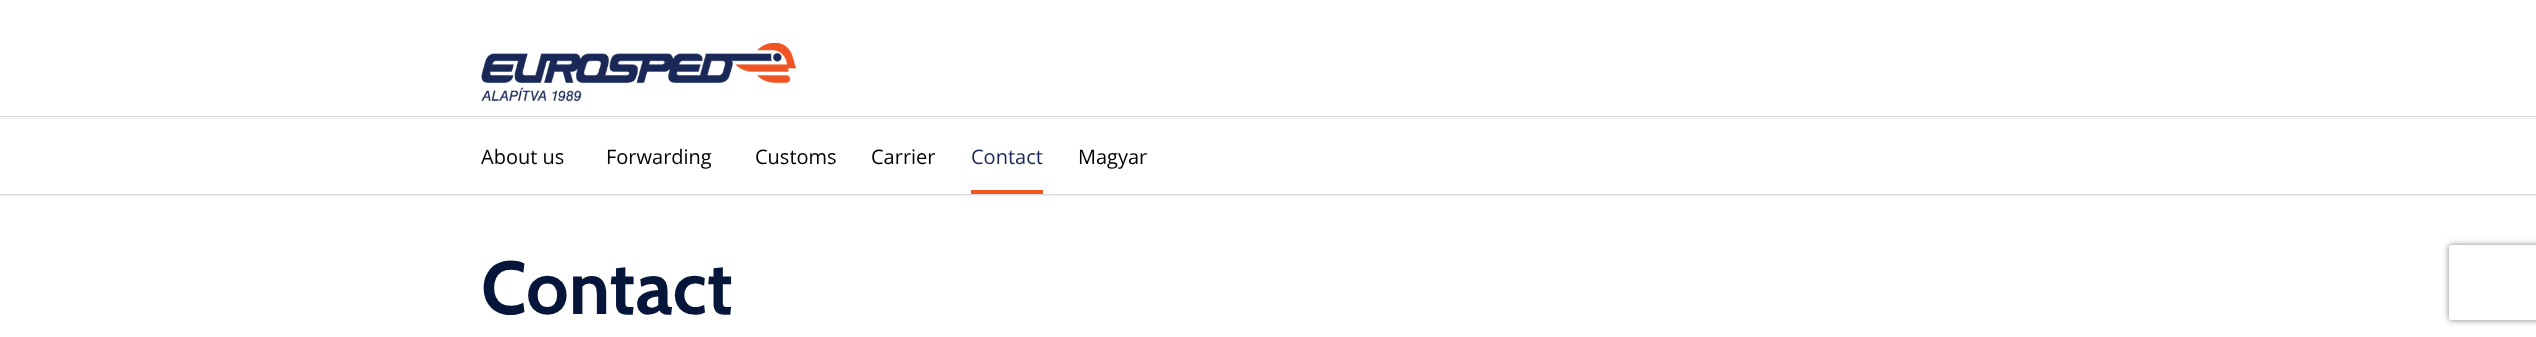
(async () => {
    const canvas = document.querySelector("canvas");
    canvas.width = 2536;
    canvas.height = 337;
    const context = canvas.getContext("2d");
    context.miterLimit = 4;
    context.fontKerning = "normal";
    function write(s, x, y, font, color) {
        context.font = font;
        context.fillStyle = color;
        context.fillText(s, x, y);
    }
    function block(x, y, w, h, color) {
        context.fillStyle = color;
        context.fillRect(x, y, w, h);
    }
    async function photo(src, x, y, w, h) {
        const img = new Image();
        img.src = src;
        await img.decode();
        context.drawImage(img, x, y, w, h);
    }

    block(0, 0, 2536, 337, "rgb(255, 255, 255)");
    block(0, 116, 2536, 1, "rgb(220, 220, 220)");
    await photo("media/1.png", 481, 43, 316, 59);
    block(0, 118, 2536, 1, "rgb(237, 237, 237)");
    block(0, 194, 2536, 1, "rgb(220, 220, 220)");
    write("About us", 481, 164, "20px Open Sans", "rgb(0, 0, 0)");
    write("Forwarding", 606, 164, "20px Open Sans", "rgb(0, 0, 0)");
    write("Customs", 755, 164, "20px Open Sans", "rgb(0, 0, 0)");
    write("Carrier", 871, 164, "20px Open Sans", "rgb(0, 0, 0)");
    write("Contact", 971, 164, "20px Open Sans", "rgb(25, 40, 87)");
    block(971, 190, 72, 4, "rgb(240, 84, 35)");
    write("Magyar", 1078, 164, "20px Open Sans", "rgb(0, 0, 0)");
    block(0, 195, 2536, 1, "rgb(237, 237, 237)");
    write("Contact", 481, 314, "bold 75px Cabin", "rgb(6, 22, 58)");
    context.save();
    context.beginPath();
    context.moveTo(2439, 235);
    context.lineTo(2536, 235);
    context.lineTo(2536, 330);
    context.lineTo(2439, 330);
    context.closePath();
    context.moveTo(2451.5, 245);
    context.lineTo(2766.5, 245);
    context.bezierCurveTo(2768, 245, 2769, 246, 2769, 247.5);
    context.lineTo(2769, 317.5);
    context.bezierCurveTo(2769, 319, 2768, 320, 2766.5, 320);
    context.lineTo(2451.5, 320);
    context.bezierCurveTo(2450, 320, 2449, 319, 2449, 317.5);
    context.lineTo(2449, 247.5);
    context.bezierCurveTo(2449, 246, 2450, 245, 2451.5, 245);
    context.closePath();
    context.clip("evenodd");
    context.fillStyle = "rgb(128, 128, 128)";
    context.filter = "blur(3px)";
    context.beginPath();
    context.roundRect(2449, 245, 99, 75, 2.5);
    context.fill();
    context.filter = "none";
    context.restore();
})();
